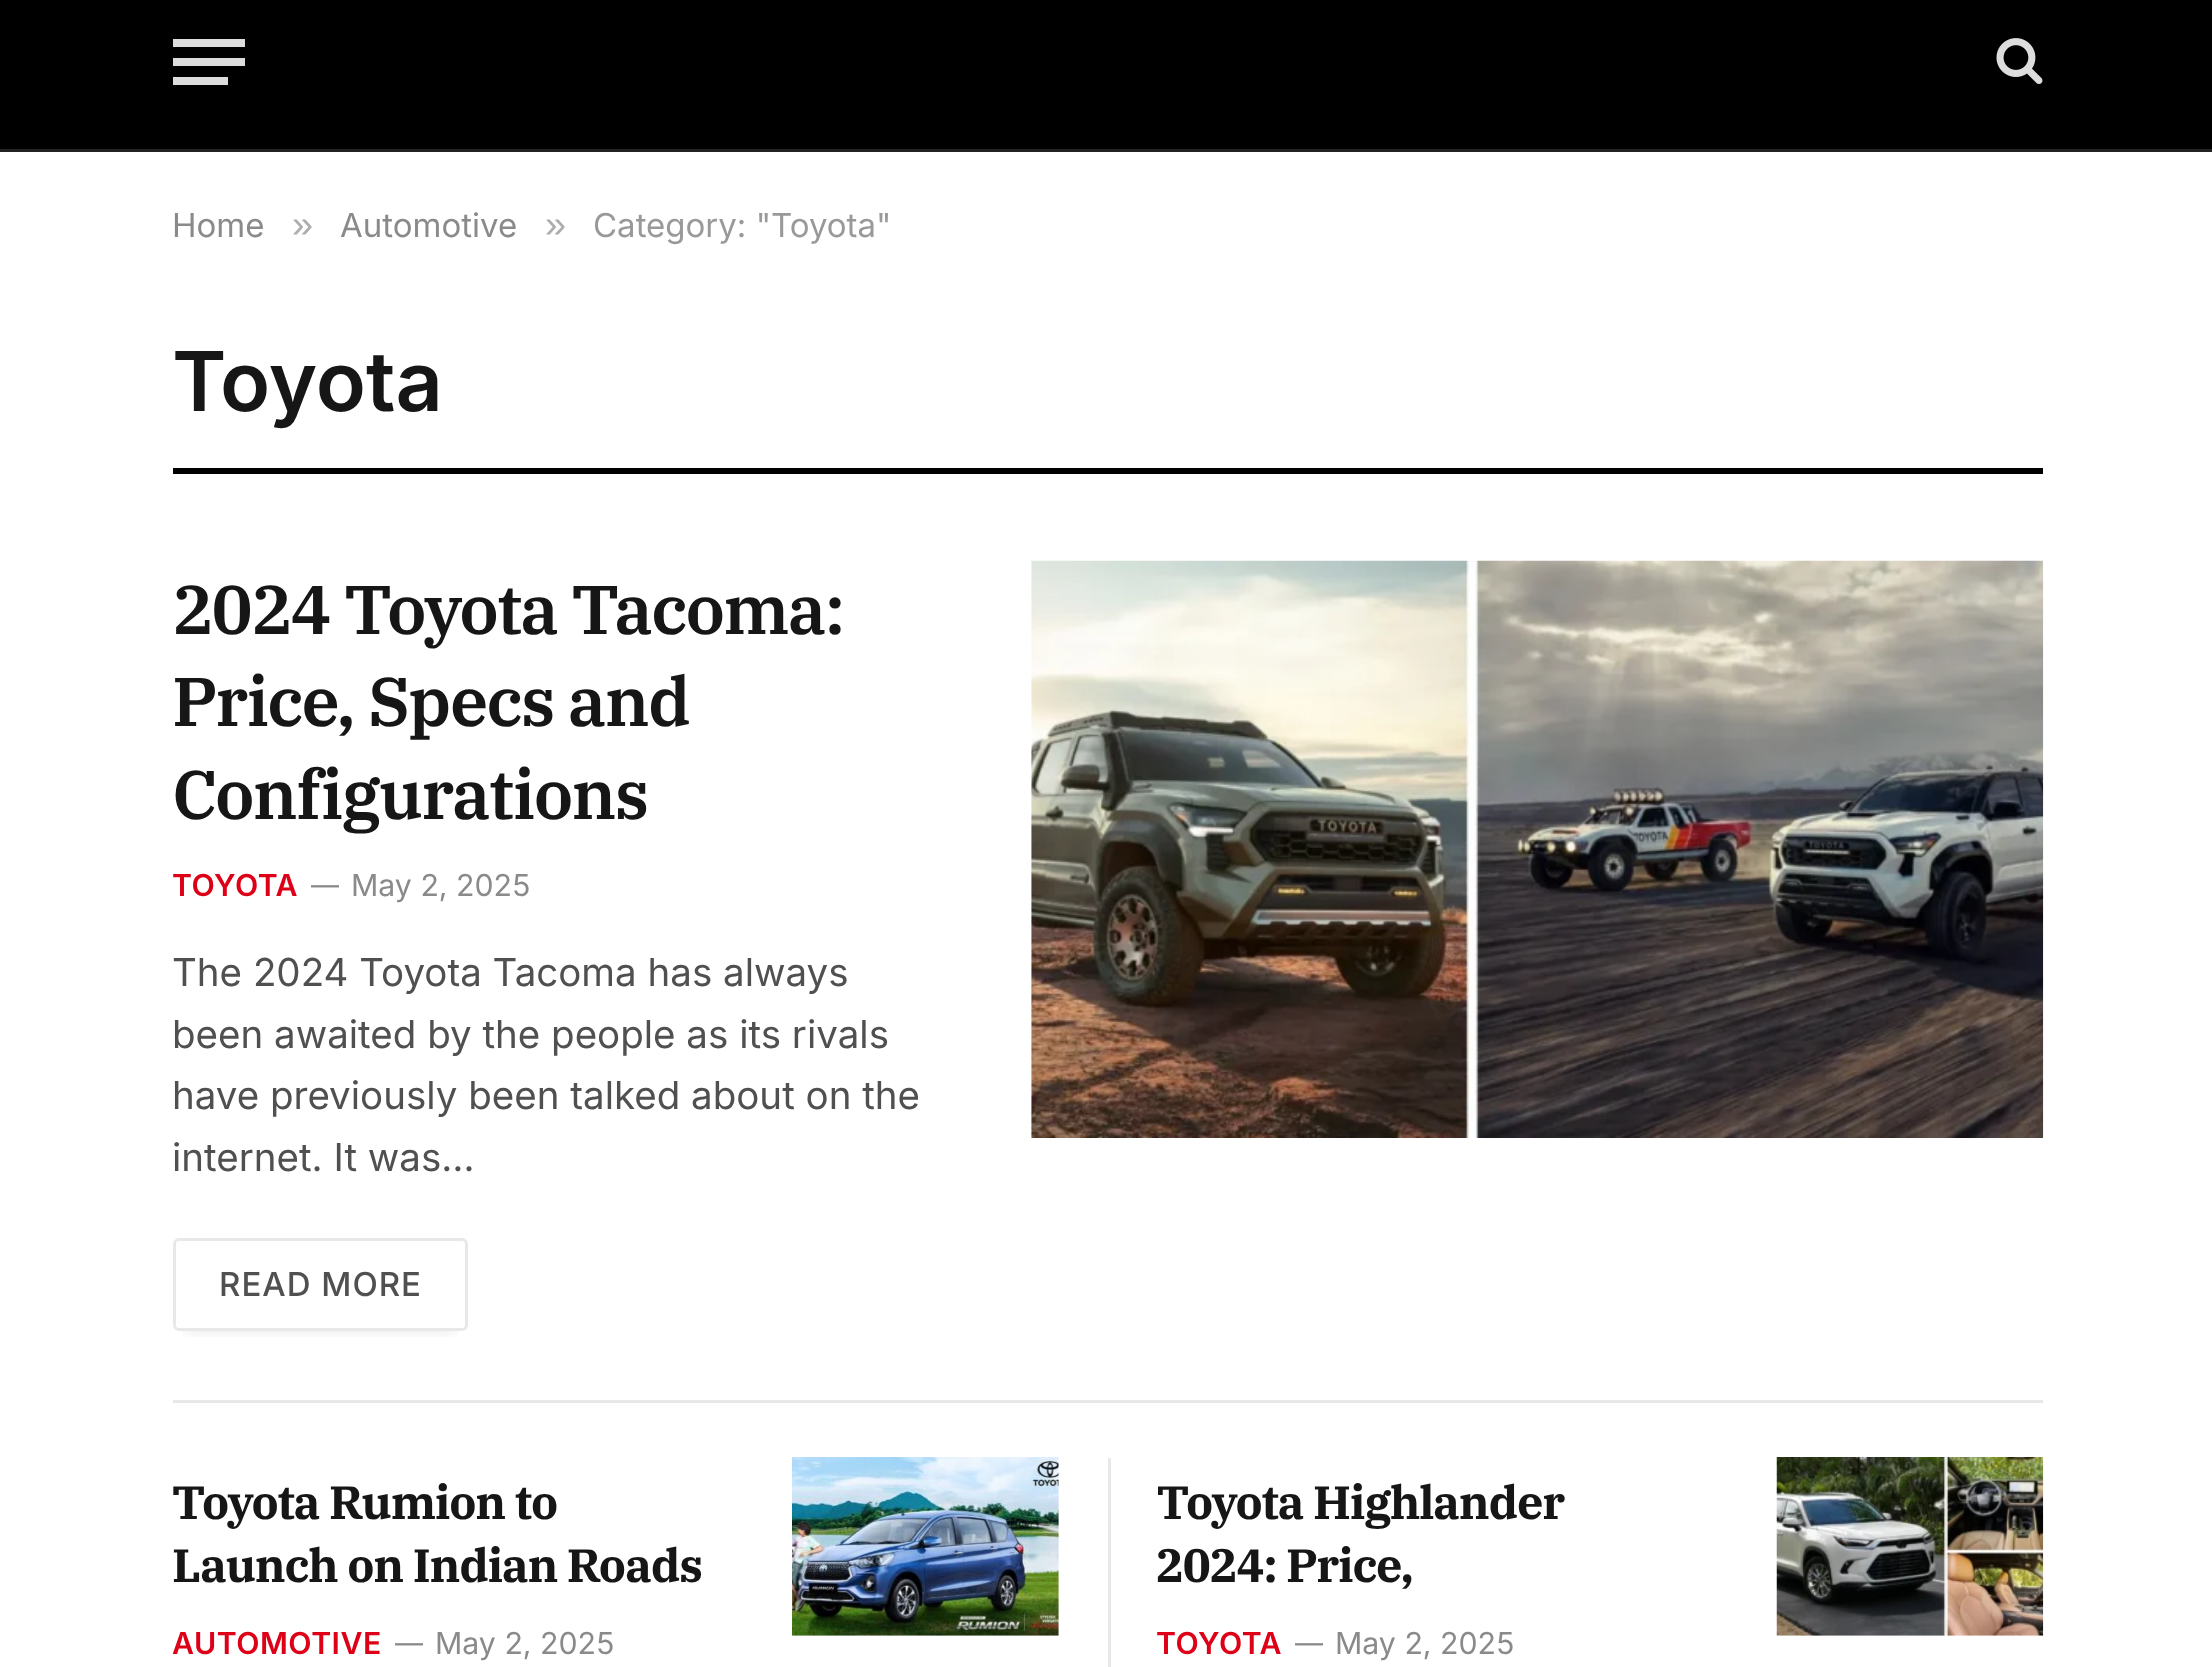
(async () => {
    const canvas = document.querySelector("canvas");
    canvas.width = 2212;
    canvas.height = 1667;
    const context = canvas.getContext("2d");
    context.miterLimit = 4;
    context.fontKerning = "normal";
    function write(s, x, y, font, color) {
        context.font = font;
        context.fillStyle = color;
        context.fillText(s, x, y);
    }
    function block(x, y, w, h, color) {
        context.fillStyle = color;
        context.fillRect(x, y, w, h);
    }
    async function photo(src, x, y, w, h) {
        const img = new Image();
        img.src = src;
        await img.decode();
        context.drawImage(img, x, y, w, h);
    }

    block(0, 0, 2212, 1667, "rgb(255, 255, 255)");
    block(0, 0, 2212, 149, "rgb(0, 0, 0)");
    block(0, 149, 2212, 3, "rgb(34, 34, 34)");
    block(173, 77, 55, 8, "rgb(221, 221, 221)");
    block(173, 39, 72, 8, "rgb(221, 221, 221)");
    block(173, 58, 72, 8, "rgb(221, 221, 221)");
    await photo("media/1.png", 1996, 38, 47, 46);
    write("Home", 172, 237, "33px Inter", "rgb(138, 138, 138)");
    write("»", 292, 237, "38px Liberation Sans", "rgb(173, 173, 173)");
    write("Automotive", 340, 237, "33px Inter", "rgb(138, 138, 138)");
    write("»", 545, 237, "38px Liberation Sans", "rgb(173, 173, 173)");
    write("Category: \"Toyota\"", 593, 237, "33px Inter", "rgb(153, 153, 153)");
    write("Toyota", 172, 411, "600 82.5px Inter", "rgb(22, 22, 22)");
    block(173, 468, 1870, 6, "rgb(0, 0, 0)");
    context.letterSpacing = "-1.75px";
    write("2024 Toyota Tacoma:", 172, 634, "600 68.75px IBM Plex Serif", "rgb(22, 22, 22)");
    write("Price, Specs and", 172, 726, "600 68.75px IBM Plex Serif", "rgb(22, 22, 22)");
    write("Configurations", 172, 819, "600 68.75px IBM Plex Serif", "rgb(22, 22, 22)");
    context.letterSpacing = "0.5px";
    write("TOYOTA", 172, 896, "600 30.25px Inter", "rgb(221, 0, 23)");
    context.letterSpacing = "0px";
    write("—", 311, 895, "28px Inter", "rgb(138, 138, 138)");
    write("May 2, 2025", 351, 896, "30.25px Inter", "rgb(138, 138, 138)");
    write("The 2024 Toyota Tacoma has always", 172, 986, "38.5px Inter", "rgb(80, 80, 80)");
    write("been awaited by the people as its rivals", 172, 1048, "38.5px Inter", "rgb(80, 80, 80)");
    write("have previously been talked about on the", 172, 1109, "38.5px Inter", "rgb(80, 80, 80)");
    write("internet. It was…", 172, 1171, "38.5px Inter", "rgb(80, 80, 80)");
    context.save();
    context.beginPath();
    context.rect(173, 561, 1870, 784);
    context.clip();
    context.beginPath();
    context.rect(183, 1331, 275, 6);
    context.clip();
    context.fillStyle = "rgba(0, 0, 0, 0.16)";
    context.filter = "blur(9.5px)";
    context.beginPath();
    context.rect(184, 1254, 273, 72);
    context.fill();
    context.filter = "none";
    context.restore();
    context.beginPath();
    context.roundRect(174.5, 1239.5, 292, 90, 4.5);
    context.strokeStyle = "rgb(232, 232, 232)";
    context.lineWidth = 3;
    context.stroke();
    context.letterSpacing = "1px";
    write("READ MORE", 219, 1296, "500 33px Inter", "rgb(80, 80, 80)");
    await photo("media/2.png", 1031, 560, 1013, 578);
    block(173, 1400, 1870, 3, "rgb(232, 232, 232)");
    context.letterSpacing = "-1.2px";
    write("Toyota Rumion to", 172, 1519, "bold 46.75px IBM Plex Serif", "rgb(22, 22, 22)");
    write("Launch on Indian Roads", 172, 1582, "bold 46.75px IBM Plex Serif", "rgb(22, 22, 22)");
    context.letterSpacing = "0.5px";
    write("AUTOMOTIVE", 172, 1654, "600 30.25px Inter", "rgb(221, 0, 23)");
    context.letterSpacing = "0px";
    write("—", 395, 1653, "28px Inter", "rgb(138, 138, 138)");
    write("May 2, 2025", 435, 1654, "30.25px Inter", "rgb(138, 138, 138)");
    await photo("media/3.png", 792, 1457, 267, 179);
    block(1108, 1458, 3, 209, "rgb(232, 232, 232)");
    context.save();
    context.beginPath();
    context.rect(1158, 1471, 536, 127);
    context.clip();
    context.letterSpacing = "-1.2px";
    write("Toyota Highlander", 1156, 1519, "bold 46.75px IBM Plex Serif", "rgb(22, 22, 22)");
    context.restore();
    context.letterSpacing = "-1.2px";
    write("2024: Price,", 1156, 1582, "bold 46.75px IBM Plex Serif", "rgb(22, 22, 22)");
    context.letterSpacing = "0.5px";
    write("TOYOTA", 1156, 1654, "600 30.25px Inter", "rgb(221, 0, 23)");
    context.letterSpacing = "0px";
    write("—", 1295, 1653, "28px Inter", "rgb(138, 138, 138)");
    write("May 2, 2025", 1335, 1654, "30.25px Inter", "rgb(138, 138, 138)");
    await photo("media/4.png", 1776, 1457, 268, 179);
})();
